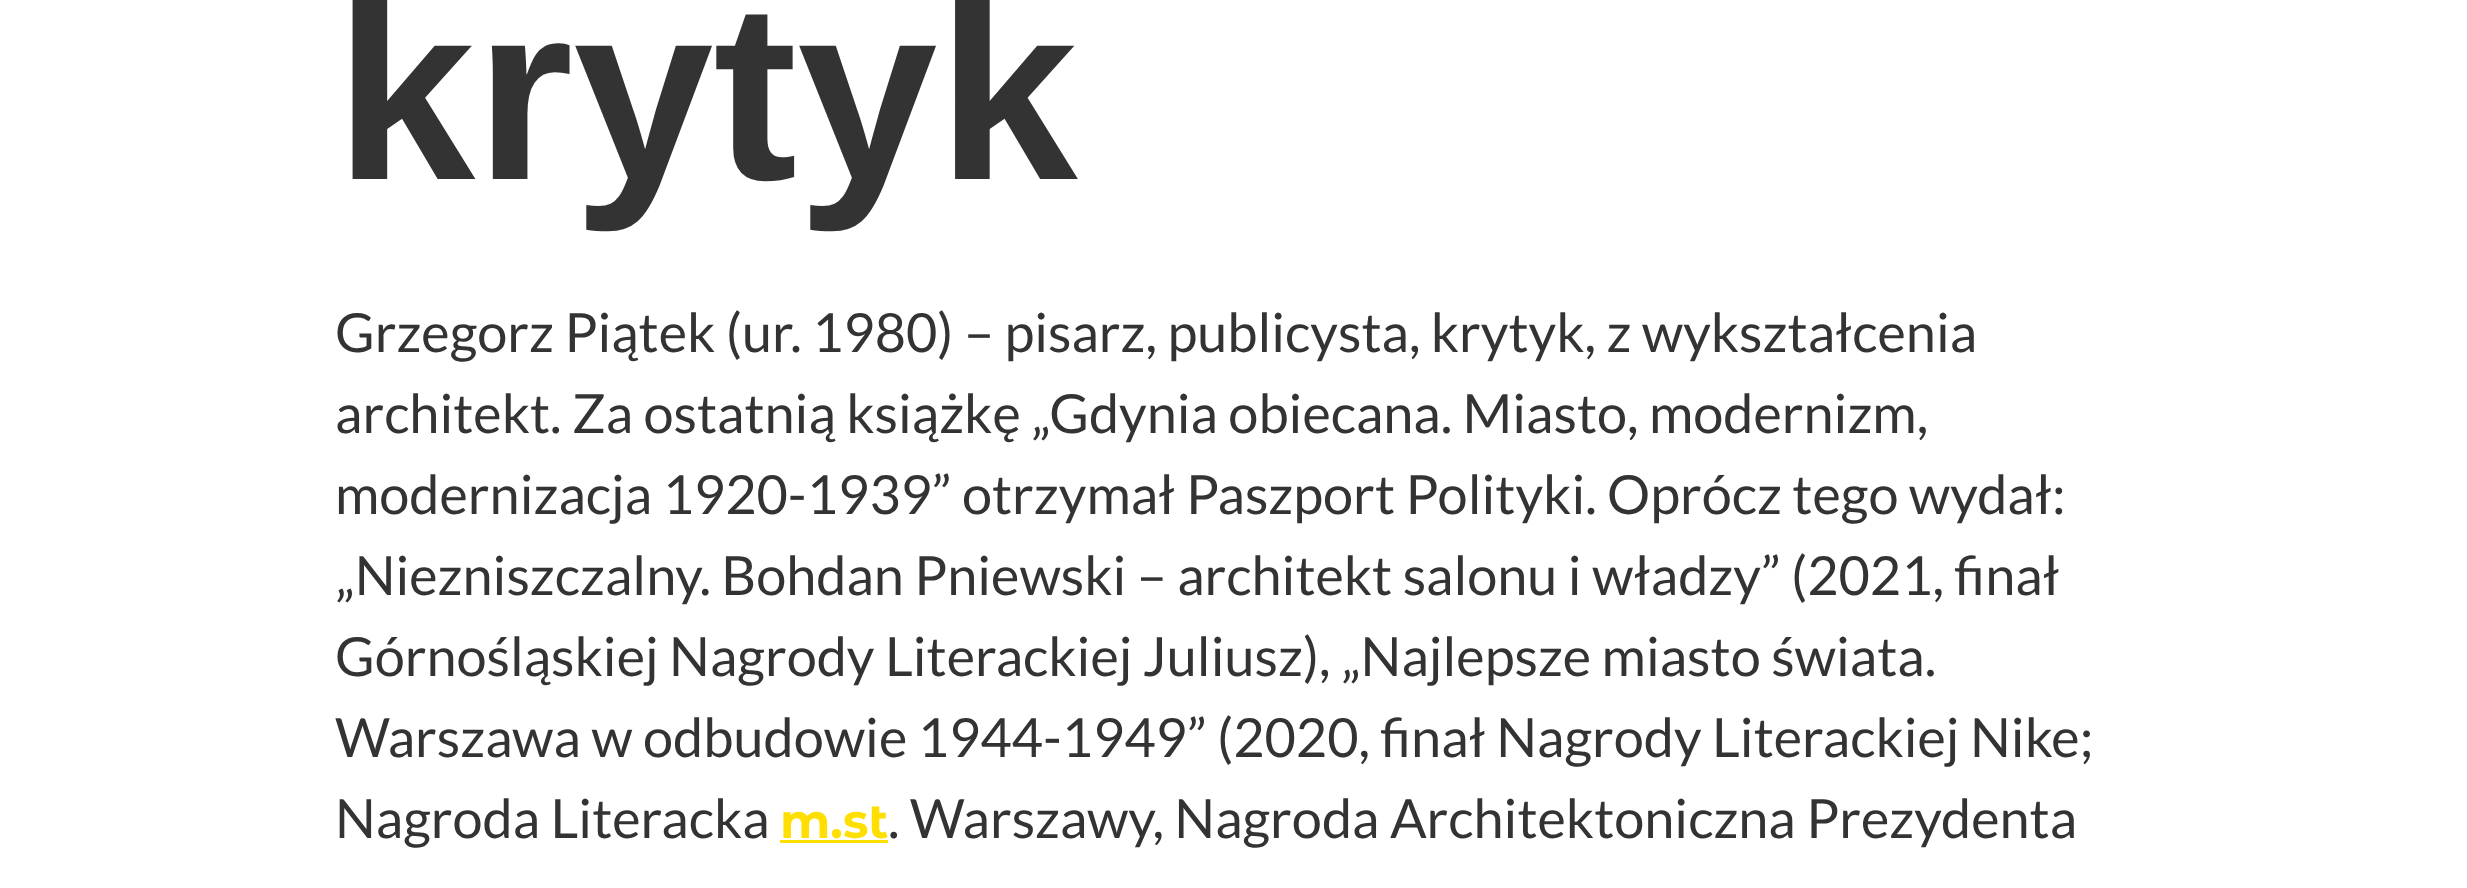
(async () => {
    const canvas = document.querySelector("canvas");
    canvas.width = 2467;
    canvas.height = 888;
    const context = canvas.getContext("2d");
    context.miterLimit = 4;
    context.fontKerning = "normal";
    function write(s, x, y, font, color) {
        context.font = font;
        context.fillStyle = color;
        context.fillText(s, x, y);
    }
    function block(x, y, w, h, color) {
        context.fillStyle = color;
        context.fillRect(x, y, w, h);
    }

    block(0, 0, 2467, 888, "rgb(255, 255, 255)");
    write("krytyk", 335, 179, "bold 252px Liberation Sans", "rgb(51, 51, 51)");
    write("Grzegorz Piątek (ur. 1980) – pisarz, publicysta, krytyk, z wykształcenia", 335, 352, "54px Lato", "rgb(51, 51, 51)");
    write("architekt. Za ostatnią książkę „Gdynia obiecana. Miasto, modernizm,", 335, 433, "54px Lato", "rgb(51, 51, 51)");
    write("modernizacja 1920-1939” otrzymał Paszport Polityki. Oprócz tego wydał:", 335, 514, "54px Lato", "rgb(51, 51, 51)");
    write("„Niezniszczalny. Bohdan Pniewski – architekt salonu i władzy” (2021, finał", 335, 595, "54px Lato", "rgb(51, 51, 51)");
    write("Górnośląskiej Nagrody Literackiej Juliusz), „Najlepsze miasto świata.", 335, 676, "54px Lato", "rgb(51, 51, 51)");
    write("Warszawa w odbudowie 1944-1949” (2020, finał Nagrody Literackiej Nike;", 335, 757, "54px Lato", "rgb(51, 51, 51)");
    write("Nagroda Literacka", 335, 838, "54px Lato", "rgb(51, 51, 51)");
    write("m.st", 780, 838, "bold 48px Montserrat Alternates", "rgb(255, 223, 0)");
    block(780, 840, 108, 3, "rgb(255, 223, 0)");
    write(". Warszawy, Nagroda Architektoniczna Prezydenta", 888, 838, "54px Lato", "rgb(51, 51, 51)");
})();
